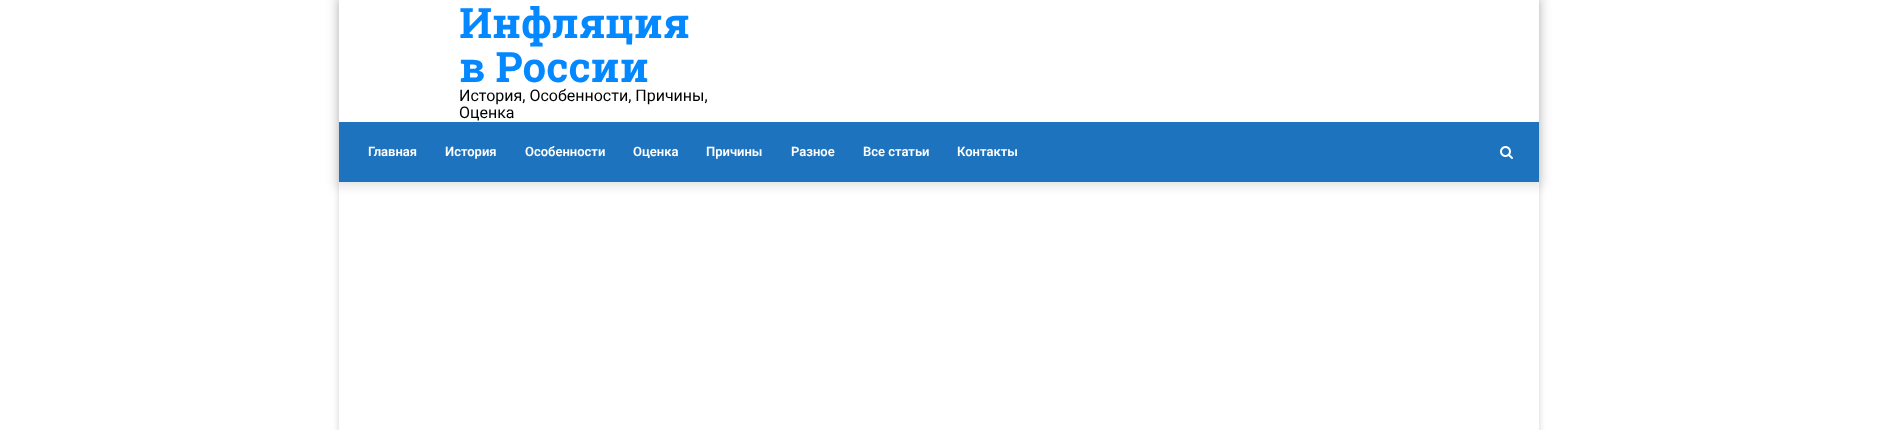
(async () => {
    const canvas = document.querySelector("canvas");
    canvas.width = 1878;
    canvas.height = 430;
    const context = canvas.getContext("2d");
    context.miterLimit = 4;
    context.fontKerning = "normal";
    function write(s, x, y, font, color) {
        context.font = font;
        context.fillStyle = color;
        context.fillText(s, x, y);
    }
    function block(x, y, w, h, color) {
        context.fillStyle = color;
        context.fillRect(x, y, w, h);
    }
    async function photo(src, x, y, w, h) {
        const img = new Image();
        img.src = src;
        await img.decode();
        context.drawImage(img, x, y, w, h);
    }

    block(0, 0, 1878, 430, "rgb(255, 255, 255)");
    context.save();
    context.beginPath();
    context.moveTo(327, 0);
    context.lineTo(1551, 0);
    context.lineTo(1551, 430);
    context.lineTo(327, 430);
    context.closePath();
    context.moveTo(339, 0);
    context.lineTo(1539, 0);
    context.lineTo(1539, 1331);
    context.lineTo(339, 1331);
    context.closePath();
    context.clip("evenodd");
    context.fillStyle = "rgba(171, 171, 171, 0.5)";
    context.filter = "blur(3.5px)";
    context.beginPath();
    context.rect(339, 1, 1200, 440);
    context.fill();
    context.filter = "none";
    context.restore();
    context.save();
    context.beginPath();
    context.moveTo(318, 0);
    context.lineTo(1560, 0);
    context.lineTo(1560, 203);
    context.lineTo(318, 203);
    context.closePath();
    context.moveTo(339, 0);
    context.lineTo(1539, 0);
    context.lineTo(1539, 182);
    context.lineTo(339, 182);
    context.closePath();
    context.clip("evenodd");
    context.fillStyle = "rgba(0, 0, 0, 0.1)";
    context.filter = "blur(5px)";
    context.beginPath();
    context.rect(334, -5, 1210, 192);
    context.fill();
    context.filter = "none";
    context.restore();
    write("Инфляция", 459, 38, "bold 42px Roboto Slab", "rgb(4, 136, 255)");
    write("в России", 459, 82, "bold 42px Roboto Slab", "rgb(4, 136, 255)");
    write("История, Особенности, Причины,", 459, 101, "16px Roboto", "rgb(0, 0, 0)");
    write("Оценка", 459, 118, "16px Roboto", "rgb(0, 0, 0)");
    block(339, 122, 1200, 60, "rgb(30, 115, 190)");
    write("Главная", 368, 156, "600 13px Roboto", "rgb(255, 255, 255)");
    write("История", 445, 156, "600 13px Roboto", "rgb(255, 255, 255)");
    write("Особенности", 525, 156, "600 13px Roboto", "rgb(255, 255, 255)");
    write("Оценка", 633, 156, "600 13px Roboto", "rgb(255, 255, 255)");
    write("Причины", 706, 156, "600 13px Roboto", "rgb(255, 255, 255)");
    write("Разное", 791, 156, "600 13px Roboto", "rgb(255, 255, 255)");
    write("Все статьи", 863, 156, "600 13px Roboto", "rgb(255, 255, 255)");
    write("Контакты", 957, 156, "600 13px Roboto", "rgb(255, 255, 255)");
    await photo("media/1.png", 1500, 146, 13, 13);
})();
